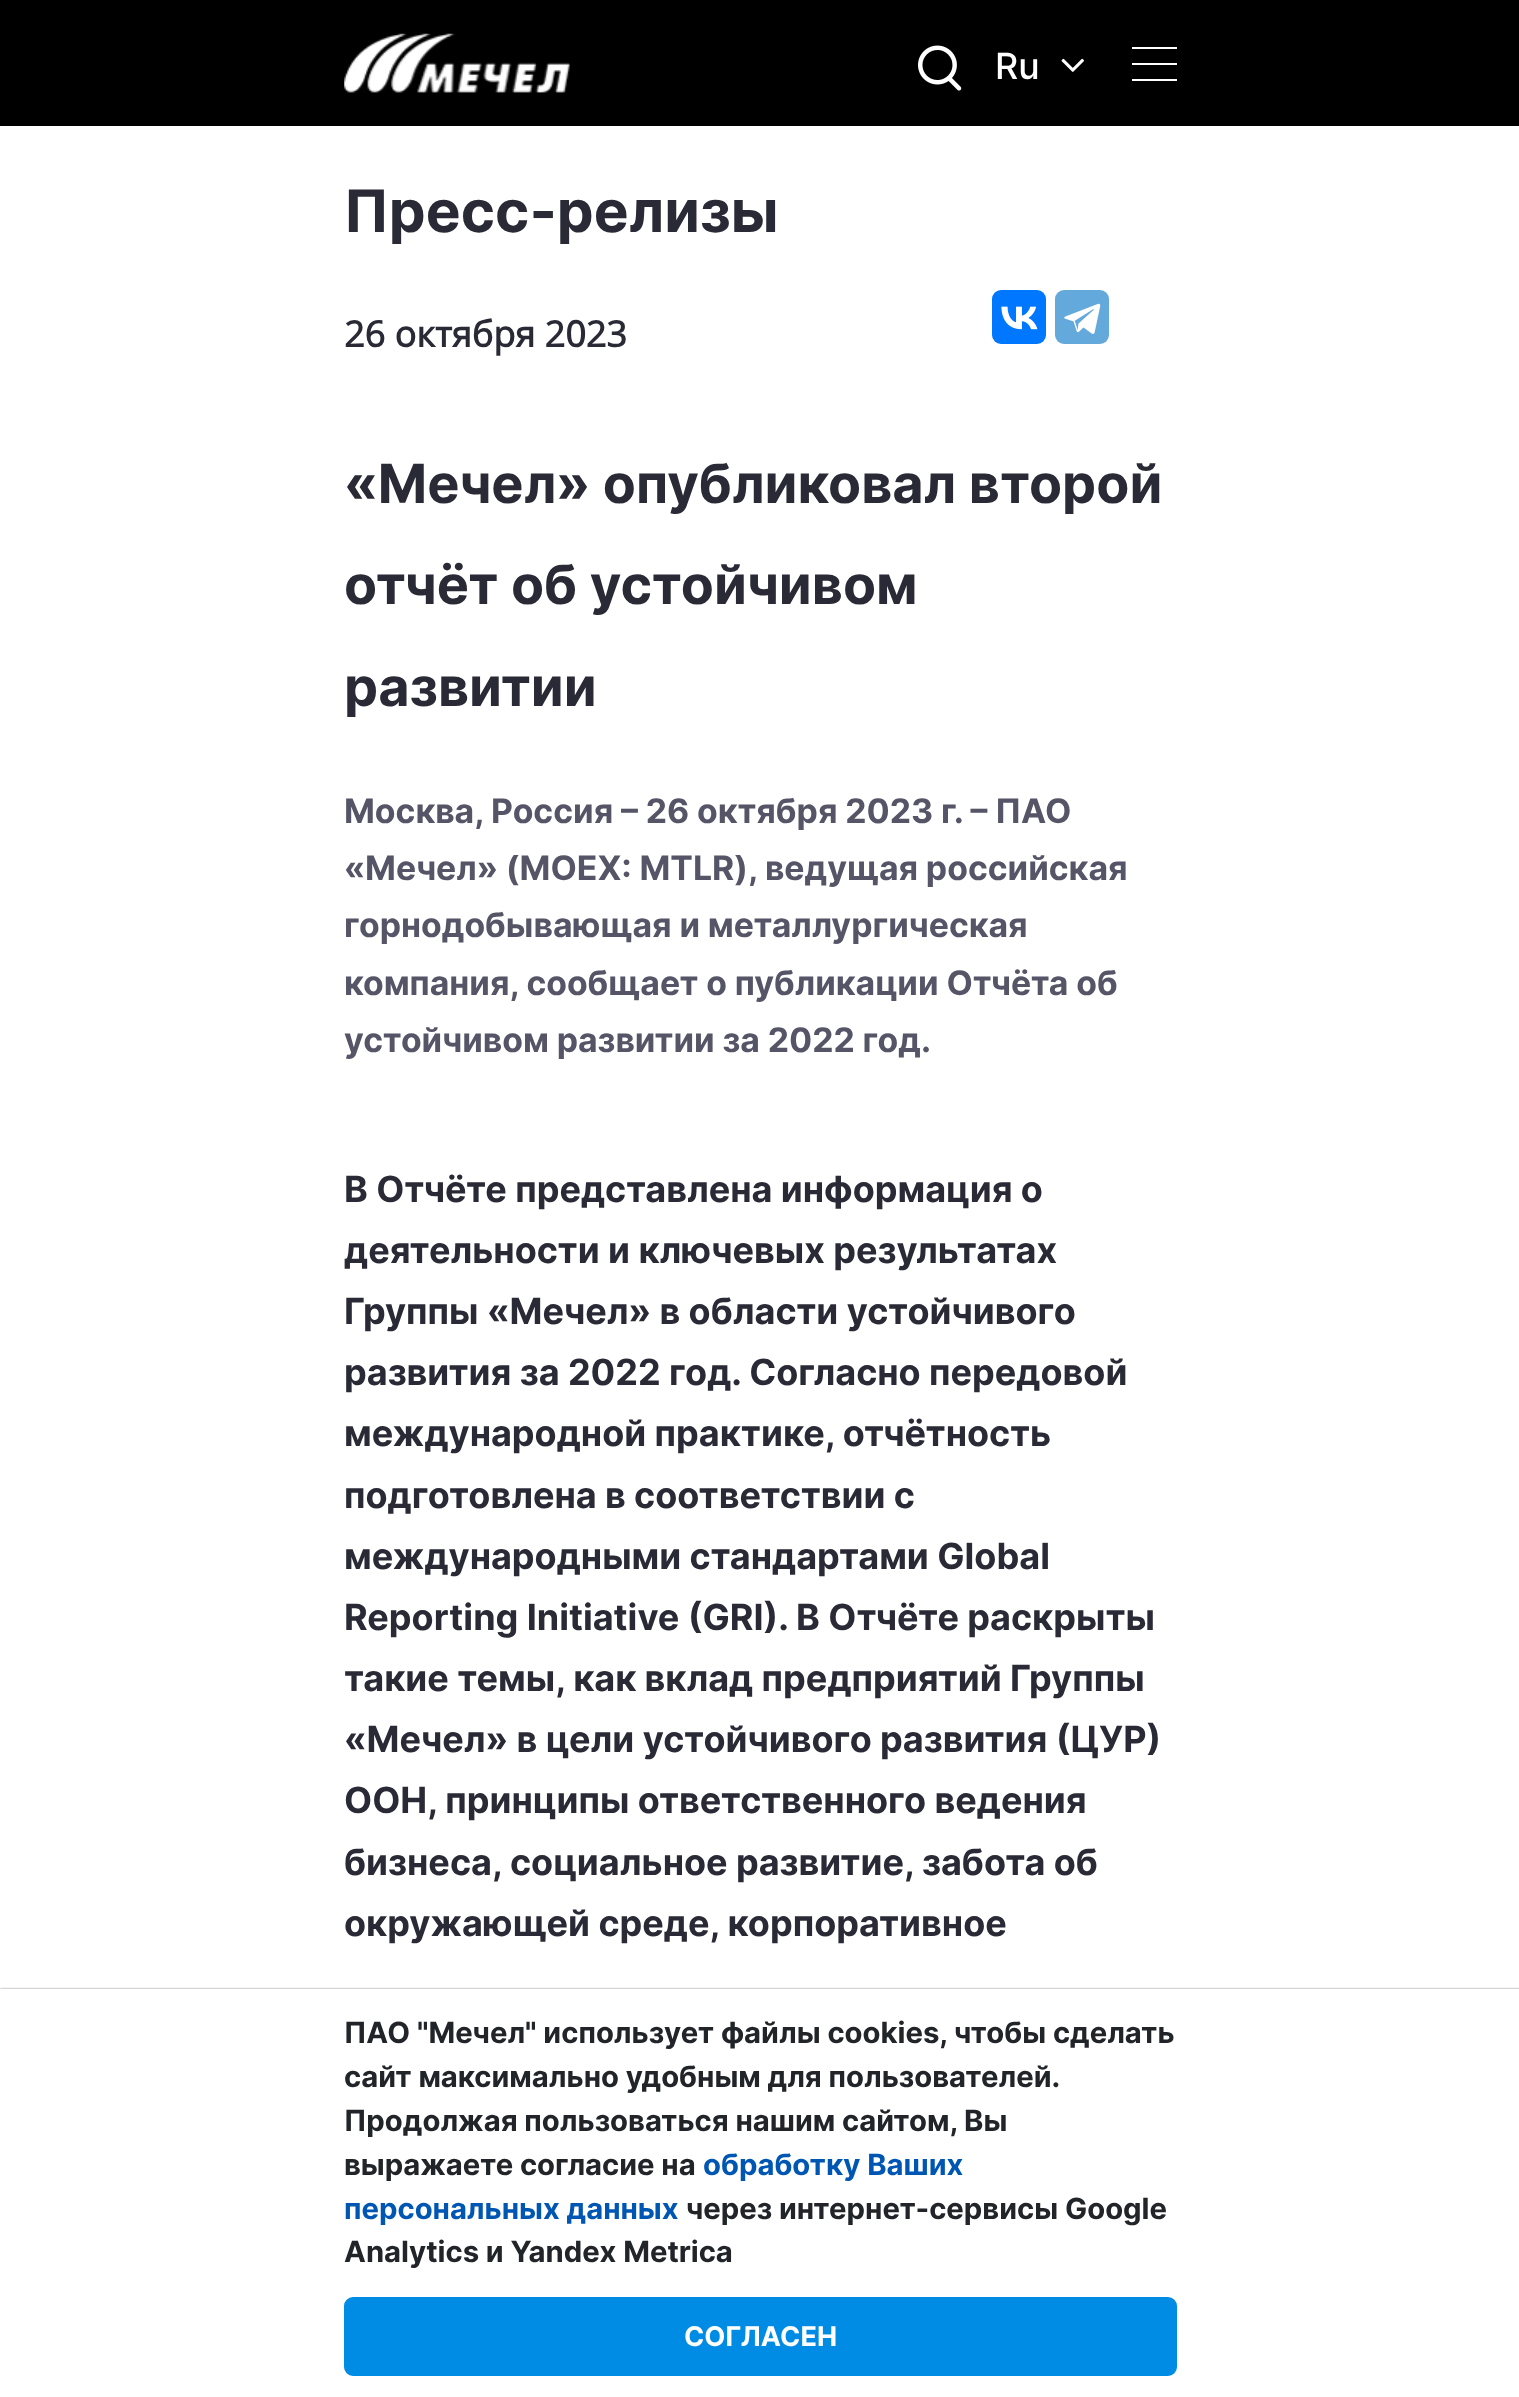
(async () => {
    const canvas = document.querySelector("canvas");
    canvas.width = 1519;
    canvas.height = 2397;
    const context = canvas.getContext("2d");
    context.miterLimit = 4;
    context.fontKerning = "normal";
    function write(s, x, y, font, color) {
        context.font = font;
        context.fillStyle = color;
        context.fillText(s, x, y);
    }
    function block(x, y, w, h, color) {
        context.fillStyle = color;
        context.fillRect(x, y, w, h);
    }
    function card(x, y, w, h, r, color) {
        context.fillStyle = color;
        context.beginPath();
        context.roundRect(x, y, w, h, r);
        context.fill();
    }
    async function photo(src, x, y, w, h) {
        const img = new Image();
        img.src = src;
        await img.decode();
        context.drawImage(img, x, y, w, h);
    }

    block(0, 0, 1519, 2397, "rgb(255, 255, 255)");
    block(0, 0, 1519, 126, "rgb(0, 0, 0)");
    await photo("media/1.png", 344, 33, 226, 60);
    await photo("media/2.png", 918, 45, 44, 46);
    write("Ru", 995, 79, "500 36px Inter", "rgb(255, 255, 255)");
    await photo("media/3.png", 1061, 58, 23, 14);
    block(1132, 47, 45, 2, "rgb(255, 255, 255)");
    block(1132, 79, 45, 2, "rgb(255, 255, 255)");
    block(1132, 63, 45, 2, "rgb(255, 255, 255)");
    write("Пресс-релизы", 344, 232, "bold 58.5px Inter", "rgb(42, 42, 54)");
    write("26 октября 2023", 344, 347, "bold 36px Open Sans", "rgb(42, 42, 54)");
    card(992, 290, 54, 54, 9, "rgb(0, 119, 255)");
    await photo("media/4.png", 1001, 306, 37, 24);
    card(1055, 290, 54, 54, 9, "rgb(100, 169, 220)");
    await photo("media/5.png", 1064, 303, 37, 31);
    write("«Мечел» опубликовал второй", 344, 503, "bold 54px Inter", "rgb(42, 42, 54)");
    write("отчёт об устойчивом", 344, 604, "bold 54px Inter", "rgb(42, 42, 54)");
    write("развитии", 344, 706, "bold 54px Inter", "rgb(42, 42, 54)");
    write("Москва, Россия – 26 октября 2023 г. – ПАО", 344, 823, "bold 33.75px Inter", "rgb(85, 85, 103)");
    write("«Мечел» (MOEX: MTLR), ведущая российская", 344, 880, "bold 33.75px Inter", "rgb(85, 85, 103)");
    write("горнодобывающая и металлургическая", 344, 937, "bold 33.75px Inter", "rgb(85, 85, 103)");
    write("компания, сообщает о публикации Отчёта об", 344, 995, "bold 33.75px Inter", "rgb(85, 85, 103)");
    write("устойчивом развитии за 2022 год.", 344, 1052, "bold 33.75px Inter", "rgb(85, 85, 103)");
    write("В Отчёте представлена информация о", 344, 1202, "bold 36px Inter", "rgb(42, 42, 54)");
    write("деятельности и ключевых результатах", 344, 1263, "bold 36px Inter", "rgb(42, 42, 54)");
    write("Группы «Мечел» в области устойчивого", 344, 1324, "bold 36px Inter", "rgb(42, 42, 54)");
    write("развития за 2022 год. Согласно передовой", 344, 1385, "bold 36px Inter", "rgb(42, 42, 54)");
    write("международной практике, отчётность", 344, 1446, "bold 36px Inter", "rgb(42, 42, 54)");
    write("подготовлена в соответствии с", 344, 1508, "bold 36px Inter", "rgb(42, 42, 54)");
    write("международными стандартами Global", 344, 1569, "bold 36px Inter", "rgb(42, 42, 54)");
    write("Reporting Initiative (GRI). В Отчёте раскрыты", 344, 1630, "bold 36px Inter", "rgb(42, 42, 54)");
    write("такие темы, как вклад предприятий Группы", 344, 1691, "bold 36px Inter", "rgb(42, 42, 54)");
    write("«Мечел» в цели устойчивого развития (ЦУР)", 344, 1752, "bold 36px Inter", "rgb(42, 42, 54)");
    write("ООН, принципы ответственного ведения", 344, 1813, "bold 36px Inter", "rgb(42, 42, 54)");
    write("бизнеса, социальное развитие, забота об", 344, 1875, "bold 36px Inter", "rgb(42, 42, 54)");
    write("окружающей среде, корпоративное", 344, 1936, "bold 36px Inter", "rgb(42, 42, 54)");
    context.fillStyle = "rgb(128, 128, 128)";
    context.filter = "blur(1px)";
    context.beginPath();
    context.rect(0, 1989, 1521, 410);
    context.fill();
    context.filter = "none";
    block(0, 1989, 1519, 408, "rgb(255, 255, 255)");
    write("ПАО \"Мечел\" использует файлы cookies, чтобы сделать", 344, 2043, "bold 29.25px Inter", "rgb(33, 37, 41)");
    write("сайт максимально удобным для пользователей.", 344, 2087, "bold 29.25px Inter", "rgb(33, 37, 41)");
    write("Продолжая пользоваться нашим сайтом, Вы", 344, 2131, "bold 29.25px Inter", "rgb(33, 37, 41)");
    write("выражаете согласие на", 344, 2175, "bold 29.25px Inter", "rgb(33, 37, 41)");
    write("обработку Ваших", 703, 2175, "bold 29.25px Inter", "rgb(0, 86, 179)");
    write("персональных данных", 344, 2219, "bold 29.25px Inter", "rgb(0, 86, 179)");
    write("через интернет-сервисы Google", 686, 2219, "bold 29.25px Inter", "rgb(33, 37, 41)");
    write("Analytics и Yandex Metrica", 344, 2262, "bold 29.25px Inter", "rgb(33, 37, 41)");
    context.fillStyle = "rgb(0, 140, 228)";
    context.beginPath();
    context.roundRect(345, 2298, 831, 77, 8);
    context.fill();
    context.strokeStyle = "rgb(0, 140, 228)";
    context.lineWidth = 2;
    context.stroke();
    write("СОГЛАСЕН", 684, 2346, "bold 27px Inter", "rgb(255, 255, 255)");
})();
